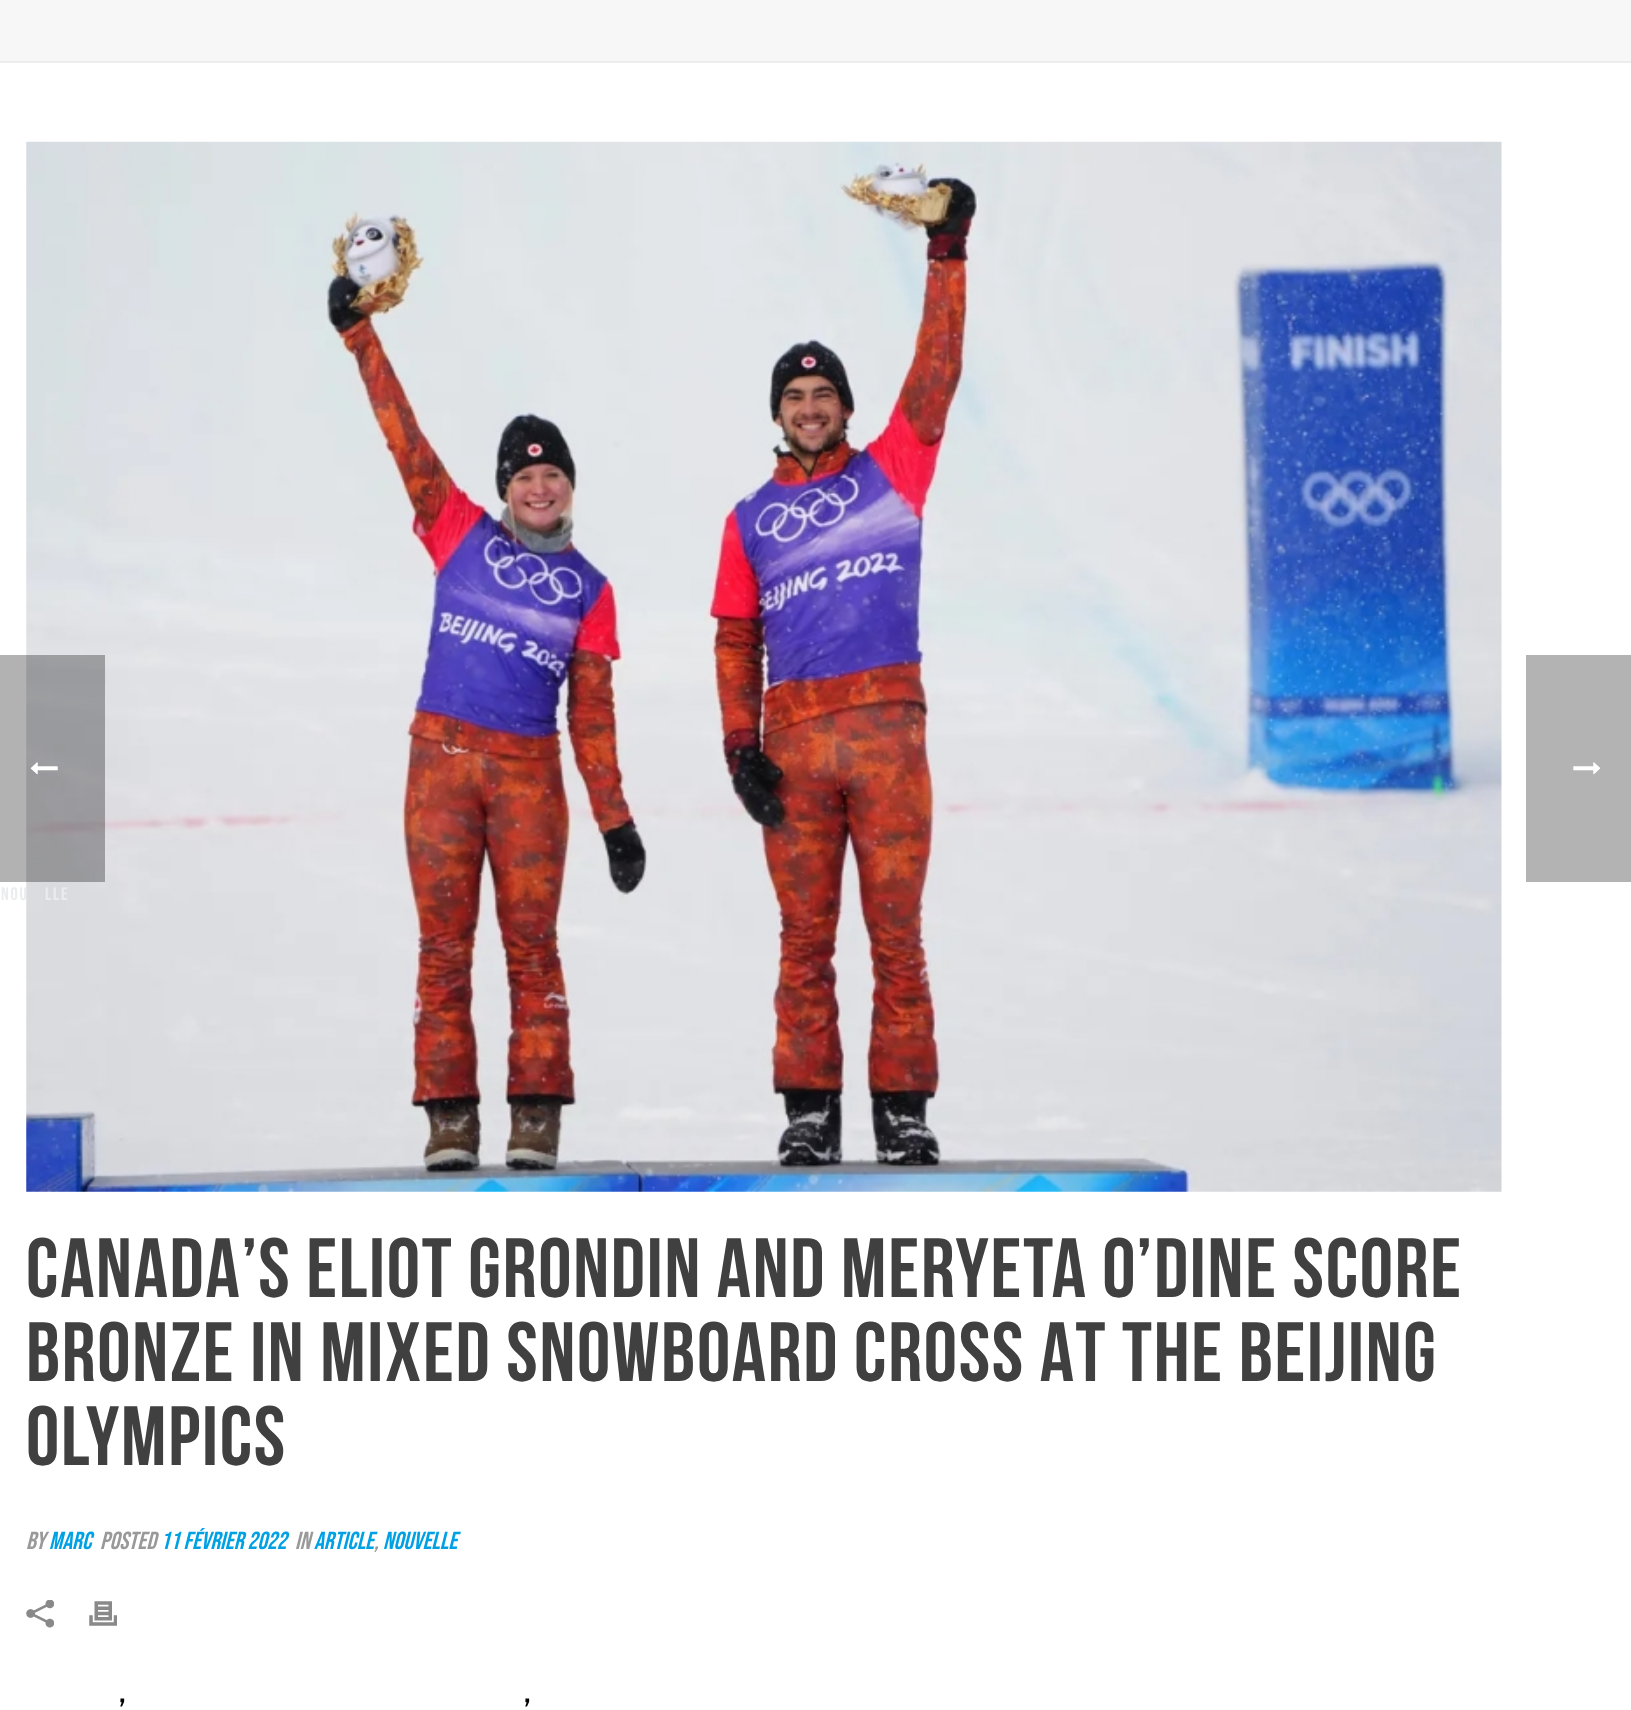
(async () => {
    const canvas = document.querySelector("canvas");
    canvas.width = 1631;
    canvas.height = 1710;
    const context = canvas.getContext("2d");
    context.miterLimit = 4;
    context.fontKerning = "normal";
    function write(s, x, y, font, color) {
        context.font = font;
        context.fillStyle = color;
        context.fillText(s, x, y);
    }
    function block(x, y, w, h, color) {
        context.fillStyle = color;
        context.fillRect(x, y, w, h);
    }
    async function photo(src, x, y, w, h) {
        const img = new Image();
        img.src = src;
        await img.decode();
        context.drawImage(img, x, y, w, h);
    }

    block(0, 0, 1631, 1710, "rgb(255, 255, 255)");
    block(1526, 655, 105, 227, "rgb(179, 179, 179)");
    await photo("media/1.png", 1573, 762, 28, 13);
    await photo("media/3.png", 26, 141, 1476, 1051);
    block(0, 655, 105, 227, "rgba(0, 0, 0, 0.3)");
    await photo("media/2.png", 30, 762, 28, 13);
    context.letterSpacing = "1.75px";
    write("NOU", 1, 900, "18px Bebas Neue", "rgb(235, 236, 238)");
    write("LLE", 45, 900, "18px Bebas Neue", "rgb(235, 236, 238)");
    block(0, 0, 1631, 61, "rgb(247, 247, 247)");
    block(0, 61, 1631, 2, "rgb(237, 237, 237)");
    write("CANADA’S ELIOT GRONDIN AND MERYETA O’DINE SCORE", 26, 1297, "bold 84px Bebas Neue", "rgb(64, 64, 64)");
    write("BRONZE IN MIXED SNOWBOARD CROSS AT THE BEIJING", 26, 1381, "bold 84px Bebas Neue", "rgb(64, 64, 64)");
    write("OLYMPICS", 26, 1465, "bold 84px Bebas Neue", "rgb(64, 64, 64)");
    context.letterSpacing = "0px";
    write("By", 26, 1549, "italic 24.5px Bebas Neue", "rgb(153, 153, 153)");
    write("Marc", 49, 1549, "italic 24.5px Bebas Neue", "rgb(0, 161, 228)");
    write("Posted", 100, 1549, "italic 24.5px Bebas Neue", "rgb(153, 153, 153)");
    write("11 février 2022", 160, 1549, "italic 24.5px Bebas Neue", "rgb(0, 161, 228)");
    write("In", 295, 1549, "italic 24.5px Bebas Neue", "rgb(153, 153, 153)");
    write("Article", 314, 1549, "italic 24.5px Bebas Neue", "rgb(0, 161, 228)");
    write("Nouvelle", 383, 1549, "italic 24.5px Bebas Neue", "rgb(0, 161, 228)");
    write(",", 374, 1549, "italic 24.5px Bebas Neue", "rgb(153, 153, 153)");
    await photo("media/4.png", 26, 1600, 28, 28);
    await photo("media/5.png", 89, 1601, 28, 25);
    context.letterSpacing = "1.75px";
    write("’", 119, 1723, "35px Bebas Neue", "rgb(0, 0, 0)");
    write("’", 524, 1723, "35px Bebas Neue", "rgb(0, 0, 0)");
})();
